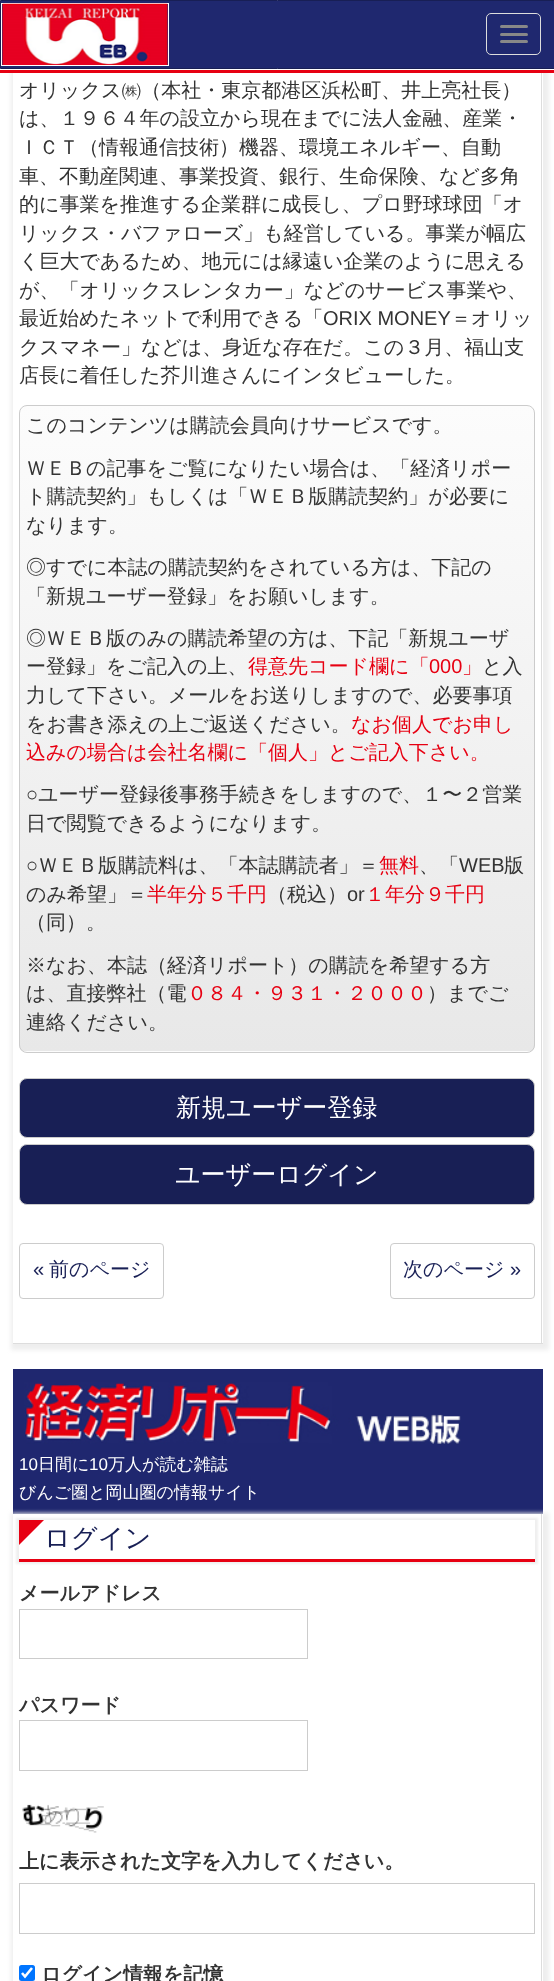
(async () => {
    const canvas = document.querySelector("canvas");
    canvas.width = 554;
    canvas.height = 1981;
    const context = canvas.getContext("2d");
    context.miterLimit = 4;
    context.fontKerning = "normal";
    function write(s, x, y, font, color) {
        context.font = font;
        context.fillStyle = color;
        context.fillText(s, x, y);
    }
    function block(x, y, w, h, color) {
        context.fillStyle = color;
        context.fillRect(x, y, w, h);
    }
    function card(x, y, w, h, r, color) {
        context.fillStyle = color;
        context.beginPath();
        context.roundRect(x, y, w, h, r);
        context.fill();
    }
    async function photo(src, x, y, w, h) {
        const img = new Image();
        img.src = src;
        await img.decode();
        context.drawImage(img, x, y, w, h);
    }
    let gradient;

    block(0, 0, 554, 1981, "rgb(255, 255, 255)");
    context.save();
    context.beginPath();
    context.moveTo(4, 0);
    context.lineTo(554, 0);
    context.lineTo(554, 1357);
    context.lineTo(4, 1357);
    context.closePath();
    context.moveTo(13, -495);
    context.lineTo(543, -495);
    context.lineTo(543, 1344);
    context.lineTo(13, 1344);
    context.closePath();
    context.clip("evenodd");
    context.fillStyle = "rgb(238, 238, 238)";
    context.filter = "blur(2px)";
    context.beginPath();
    context.rect(11, -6, 538, 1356);
    context.fill();
    context.filter = "none";
    context.restore();
    block(9, 69, 545, 1, "rgb(255, 255, 255)");
    block(0, 70, 554, 3, "rgb(231, 0, 18)");
    context.fillStyle = "rgb(31, 40, 111)";
    context.beginPath();
    context.rect(0.5, 0.5, 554, 68);
    context.fill();
    context.strokeStyle = "rgb(24, 31, 85)";
    context.stroke();
    context.strokeStyle = "rgb(255, 255, 255)";
    context.strokeRect(1.5, 3.5, 167, 62);
    await photo("media/1.png", 2, 3, 166, 62);
    context.beginPath();
    context.roundRect(486.5, 13.5, 54, 41, 4.5);
    context.strokeStyle = "rgb(221, 221, 221)";
    context.stroke();
    card(500, 25, 28, 3, 1.5, "rgb(136, 136, 136)");
    card(500, 33, 28, 3, 1.5, "rgb(136, 136, 136)");
    card(500, 40, 28, 3, 1.5, "rgb(136, 136, 136)");
    block(541, 73, 1, 1271, "rgb(221, 221, 221)");
    block(13, 1343, 530, 1, "rgb(221, 221, 221)");
    write("オリックス㈱（本社・東京都港区浜松町、井上亮社長）", 19, 97, "500 20px WenQuanYi Zen Hei", "rgb(51, 51, 51)");
    write("は、１９６４年の設立から現在までに法人金融、産業・", 19, 125, "500 20px WenQuanYi Zen Hei", "rgb(51, 51, 51)");
    write("ＩＣＴ（情報通信技術）機器、環境エネルギー、自動", 19, 154, "500 20px WenQuanYi Zen Hei", "rgb(51, 51, 51)");
    write("車、不動産関連、事業投資、銀行、生命保険、など多角", 19, 183, "500 20px WenQuanYi Zen Hei", "rgb(51, 51, 51)");
    write("的に事業を推進する企業群に成長し、プロ野球球団「オ", 19, 211, "500 20px WenQuanYi Zen Hei", "rgb(51, 51, 51)");
    write("リックス・バファローズ」も経営している。事業が幅広", 19, 240, "500 20px WenQuanYi Zen Hei", "rgb(51, 51, 51)");
    write("く巨大であるため、地元には縁遠い企業のように思える", 19, 268, "500 20px WenQuanYi Zen Hei", "rgb(51, 51, 51)");
    write("が、「オリックスレンタカー」などのサービス事業や、", 19, 297, "500 20px WenQuanYi Zen Hei", "rgb(51, 51, 51)");
    write("最近始めたネットで利用できる「", 19, 325, "500 20px WenQuanYi Zen Hei", "rgb(51, 51, 51)");
    write("ORIX MONEY", 323, 325, "20px Liberation Sans", "rgb(51, 51, 51)");
    write("＝オリッ", 451, 325, "500 20px WenQuanYi Zen Hei", "rgb(51, 51, 51)");
    write("クスマネー」などは、身近な存在だ。この３月、福山支", 19, 354, "500 20px WenQuanYi Zen Hei", "rgb(51, 51, 51)");
    write("店長に着任した芥川進さんにインタビューした。", 19, 382, "500 20px WenQuanYi Zen Hei", "rgb(51, 51, 51)");
    context.save();
    context.beginPath();
    context.roundRect(19, 405, 516, 648, 8);
    context.clip();
    gradient = context.createLinearGradient(277, 406, 277, 1051);
    gradient.addColorStop(0, "rgb(252, 252, 252)");
    gradient.addColorStop(1, "rgb(232, 232, 232)");
    context.fillStyle = gradient;
    context.fillRect(19, 406, 516, 645);
    gradient = context.createLinearGradient(277, 1051, 277, 1696);
    gradient.addColorStop(0, "rgb(252, 252, 252)");
    gradient.addColorStop(1, "rgb(232, 232, 232)");
    context.fillStyle = gradient;
    context.fillRect(19, 1051, 516, 2);
    context.restore();
    context.beginPath();
    context.roundRect(19.5, 405.5, 515, 647, 7.5);
    context.strokeStyle = "rgb(204, 204, 204)";
    context.stroke();
    write("このコンテンツは購読会員向けサービスです。", 26, 432, "500 20px WenQuanYi Zen Hei", "rgb(51, 51, 51)");
    write("ＷＥＢの記事をご覧になりたい場合は、「経済リポー", 26, 475, "500 20px WenQuanYi Zen Hei", "rgb(51, 51, 51)");
    write("ト購読契約」もしくは「ＷＥＢ版購読契約」が必要に", 26, 503, "500 20px WenQuanYi Zen Hei", "rgb(51, 51, 51)");
    write("なります。", 26, 532, "500 20px WenQuanYi Zen Hei", "rgb(51, 51, 51)");
    write("◎すでに本誌の購読契約をされている方は、下記の", 26, 574, "500 20px WenQuanYi Zen Hei", "rgb(51, 51, 51)");
    write("「新規ユーザー登録」をお願いします。", 26, 603, "500 20px WenQuanYi Zen Hei", "rgb(51, 51, 51)");
    write("◎ＷＥＢ版のみの購読希望の方は、下記「新規ユーザ", 26, 645, "500 20px WenQuanYi Zen Hei", "rgb(51, 51, 51)");
    write("ー登録」をご記入の上、", 26, 673, "500 20px WenQuanYi Zen Hei", "rgb(51, 51, 51)");
    write("得意先コード欄に「", 248, 673, "500 20px WenQuanYi Zen Hei", "rgb(231, 0, 18)");
    write("000", 429, 673, "20px Liberation Sans", "rgb(231, 0, 18)");
    write("」", 462, 673, "500 20px WenQuanYi Zen Hei", "rgb(231, 0, 18)");
    write("と入", 482, 673, "500 20px WenQuanYi Zen Hei", "rgb(51, 51, 51)");
    write("力して下さい。メールをお送りしますので、必要事項", 26, 702, "500 20px WenQuanYi Zen Hei", "rgb(51, 51, 51)");
    write("をお書き添えの上ご返送ください。", 26, 731, "500 20px WenQuanYi Zen Hei", "rgb(51, 51, 51)");
    write("なお個人でお申し", 351, 731, "500 20px WenQuanYi Zen Hei", "rgb(231, 0, 18)");
    write("込みの場合は会社名欄に「個人」とご記入下さい。", 26, 759, "500 20px WenQuanYi Zen Hei", "rgb(231, 0, 18)");
    write("○", 26, 801, "20px Liberation Sans", "rgb(51, 51, 51)");
    write("ユーザー登録後事務手続きをしますので、１〜２営業", 38, 801, "500 20px WenQuanYi Zen Hei", "rgb(51, 51, 51)");
    write("日で閲覧できるようになります。", 26, 830, "500 20px WenQuanYi Zen Hei", "rgb(51, 51, 51)");
    write("○", 26, 872, "20px Liberation Sans", "rgb(51, 51, 51)");
    write("ＷＥＢ版購読料は、「本誌購読者」＝", 38, 872, "500 20px WenQuanYi Zen Hei", "rgb(51, 51, 51)");
    write("無料", 379, 872, "500 20px WenQuanYi Zen Hei", "rgb(231, 0, 18)");
    write("、「", 419, 872, "500 20px WenQuanYi Zen Hei", "rgb(51, 51, 51)");
    write("WEB", 459, 872, "20px Liberation Sans", "rgb(51, 51, 51)");
    write("版", 504, 872, "500 20px WenQuanYi Zen Hei", "rgb(51, 51, 51)");
    write("のみ希望」＝", 26, 901, "500 20px WenQuanYi Zen Hei", "rgb(51, 51, 51)");
    write("半年分５千円", 147, 901, "500 20px WenQuanYi Zen Hei", "rgb(231, 0, 18)");
    write("（税込）", 267, 901, "500 20px WenQuanYi Zen Hei", "rgb(51, 51, 51)");
    write("or", 347, 901, "20px Liberation Sans", "rgb(51, 51, 51)");
    write("１年分９千円", 365, 901, "500 20px WenQuanYi Zen Hei", "rgb(231, 0, 18)");
    write("（同）。", 26, 929, "500 20px WenQuanYi Zen Hei", "rgb(51, 51, 51)");
    write("※なお、本誌（経済リポート）の購読を希望する方", 26, 972, "500 20px WenQuanYi Zen Hei", "rgb(51, 51, 51)");
    write("は、直接弊社（電", 26, 1000, "500 20px WenQuanYi Zen Hei", "rgb(51, 51, 51)");
    write("０８４・９３１・２０００", 187, 1000, "500 20px WenQuanYi Zen Hei", "rgb(231, 0, 18)");
    write("）までご", 427, 1000, "500 20px WenQuanYi Zen Hei", "rgb(51, 51, 51)");
    write("連絡ください。", 26, 1029, "500 20px WenQuanYi Zen Hei", "rgb(51, 51, 51)");
    context.fillStyle = "rgb(24, 31, 85)";
    context.beginPath();
    context.roundRect(19.5, 1078.5, 515, 59, 7.5);
    context.fill();
    context.stroke();
    write("新規ユーザー登録", 176, 1116, "500 25px WenQuanYi Zen Hei", "rgb(255, 255, 255)");
    context.fillStyle = "rgb(24, 31, 85)";
    context.beginPath();
    context.roundRect(19.5, 1144.5, 515, 60, 7.5);
    context.fill();
    context.stroke();
    write("ユーザーログイン", 175, 1183, "500 25px WenQuanYi Zen Hei", "rgb(255, 255, 255)");
    context.beginPath();
    context.roundRect(19.5, 1243.5, 144, 55, 3.5);
    context.stroke();
    write("«", 33, 1276, "20px Liberation Sans", "rgb(24, 31, 85)");
    write("前のページ", 49, 1276, "500 20px WenQuanYi Zen Hei", "rgb(24, 31, 85)");
    context.beginPath();
    context.roundRect(390.5, 1243.5, 144, 55, 3.5);
    context.stroke();
    write("次のページ", 403, 1276, "500 20px WenQuanYi Zen Hei", "rgb(24, 31, 85)");
    write("»", 510, 1276, "20px Liberation Sans", "rgb(24, 31, 85)");
    block(13, 1369, 530, 145, "rgb(31, 39, 111)");
    await photo("media/2.png", 24, 1382, 437, 62);
    write("10", 19, 1470, "17px Liberation Sans", "rgb(255, 255, 255)");
    write("日間に", 38, 1470, "500 17px WenQuanYi Zen Hei", "rgb(255, 255, 255)");
    write("10", 89, 1470, "17px Liberation Sans", "rgb(255, 255, 255)");
    write("万人が読む雑誌", 108, 1470, "500 17px WenQuanYi Zen Hei", "rgb(255, 255, 255)");
    write("びんご圏と岡山圏の情報サイト", 19, 1498, "500 17px WenQuanYi Zen Hei", "rgb(255, 255, 255)");
    context.save();
    context.beginPath();
    context.moveTo(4, 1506);
    context.lineTo(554, 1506);
    context.lineTo(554, 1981);
    context.lineTo(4, 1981);
    context.closePath();
    context.moveTo(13, 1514);
    context.lineTo(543, 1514);
    context.lineTo(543, 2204);
    context.lineTo(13, 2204);
    context.closePath();
    context.clip("evenodd");
    context.fillStyle = "rgb(238, 238, 238)";
    context.filter = "blur(2px)";
    context.beginPath();
    context.rect(11, 1513, 538, 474);
    context.fill();
    context.filter = "none";
    context.restore();
    block(541, 1514, 1, 467, "rgb(221, 221, 221)");
    context.save();
    context.beginPath();
    context.moveTo(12, 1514);
    context.lineTo(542, 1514);
    context.lineTo(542, 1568);
    context.lineTo(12, 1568);
    context.closePath();
    context.moveTo(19, 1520);
    context.lineTo(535, 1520);
    context.lineTo(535, 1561);
    context.lineTo(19, 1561);
    context.closePath();
    context.clip("evenodd");
    context.fillStyle = "rgb(239, 239, 239)";
    context.filter = "blur(1px)";
    context.beginPath();
    context.rect(16, 1518, 522, 46);
    context.fill();
    context.filter = "none";
    context.restore();
    block(19, 1559, 516, 3, "rgb(231, 0, 18)");
    context.beginPath();
    context.moveTo(19, 1520);
    context.lineTo(44, 1520);
    context.lineTo(19, 1545);
    context.closePath();
    context.fill();
    write("ログイン", 44, 1547, "500 26.25px WenQuanYi Zen Hei", "rgb(24, 31, 85)");
    write("メールアドレス", 19, 1600, "bold 20px WenQuanYi Zen Hei", "rgb(51, 51, 51)");
    context.strokeRect(19.5, 1609.5, 288, 49);
    write("パスワード", 19, 1712, "bold 20px WenQuanYi Zen Hei", "rgb(51, 51, 51)");
    context.strokeRect(19.5, 1720.5, 288, 50);
    await photo("media/3.png", 22, 1804, 82, 29);
    write("上に表示された文字を入力してください。", 19, 1868, "bold 20px WenQuanYi Zen Hei", "rgb(51, 51, 51)");
    context.strokeRect(19.5, 1883.5, 515, 50);
    card(19, 1965, 16, 16, 2.5, "rgb(0, 117, 255)");
    context.beginPath();
    context.moveTo(22, 1973);
    context.lineTo(25, 1976.5);
    context.lineTo(32, 1968);
    context.strokeStyle = "rgb(255, 255, 255)";
    context.lineWidth = 2.6;
    context.stroke();
    write("ログイン情報を記憶", 41, 1981, "bold 20px WenQuanYi Zen Hei", "rgb(51, 51, 51)");
})();
